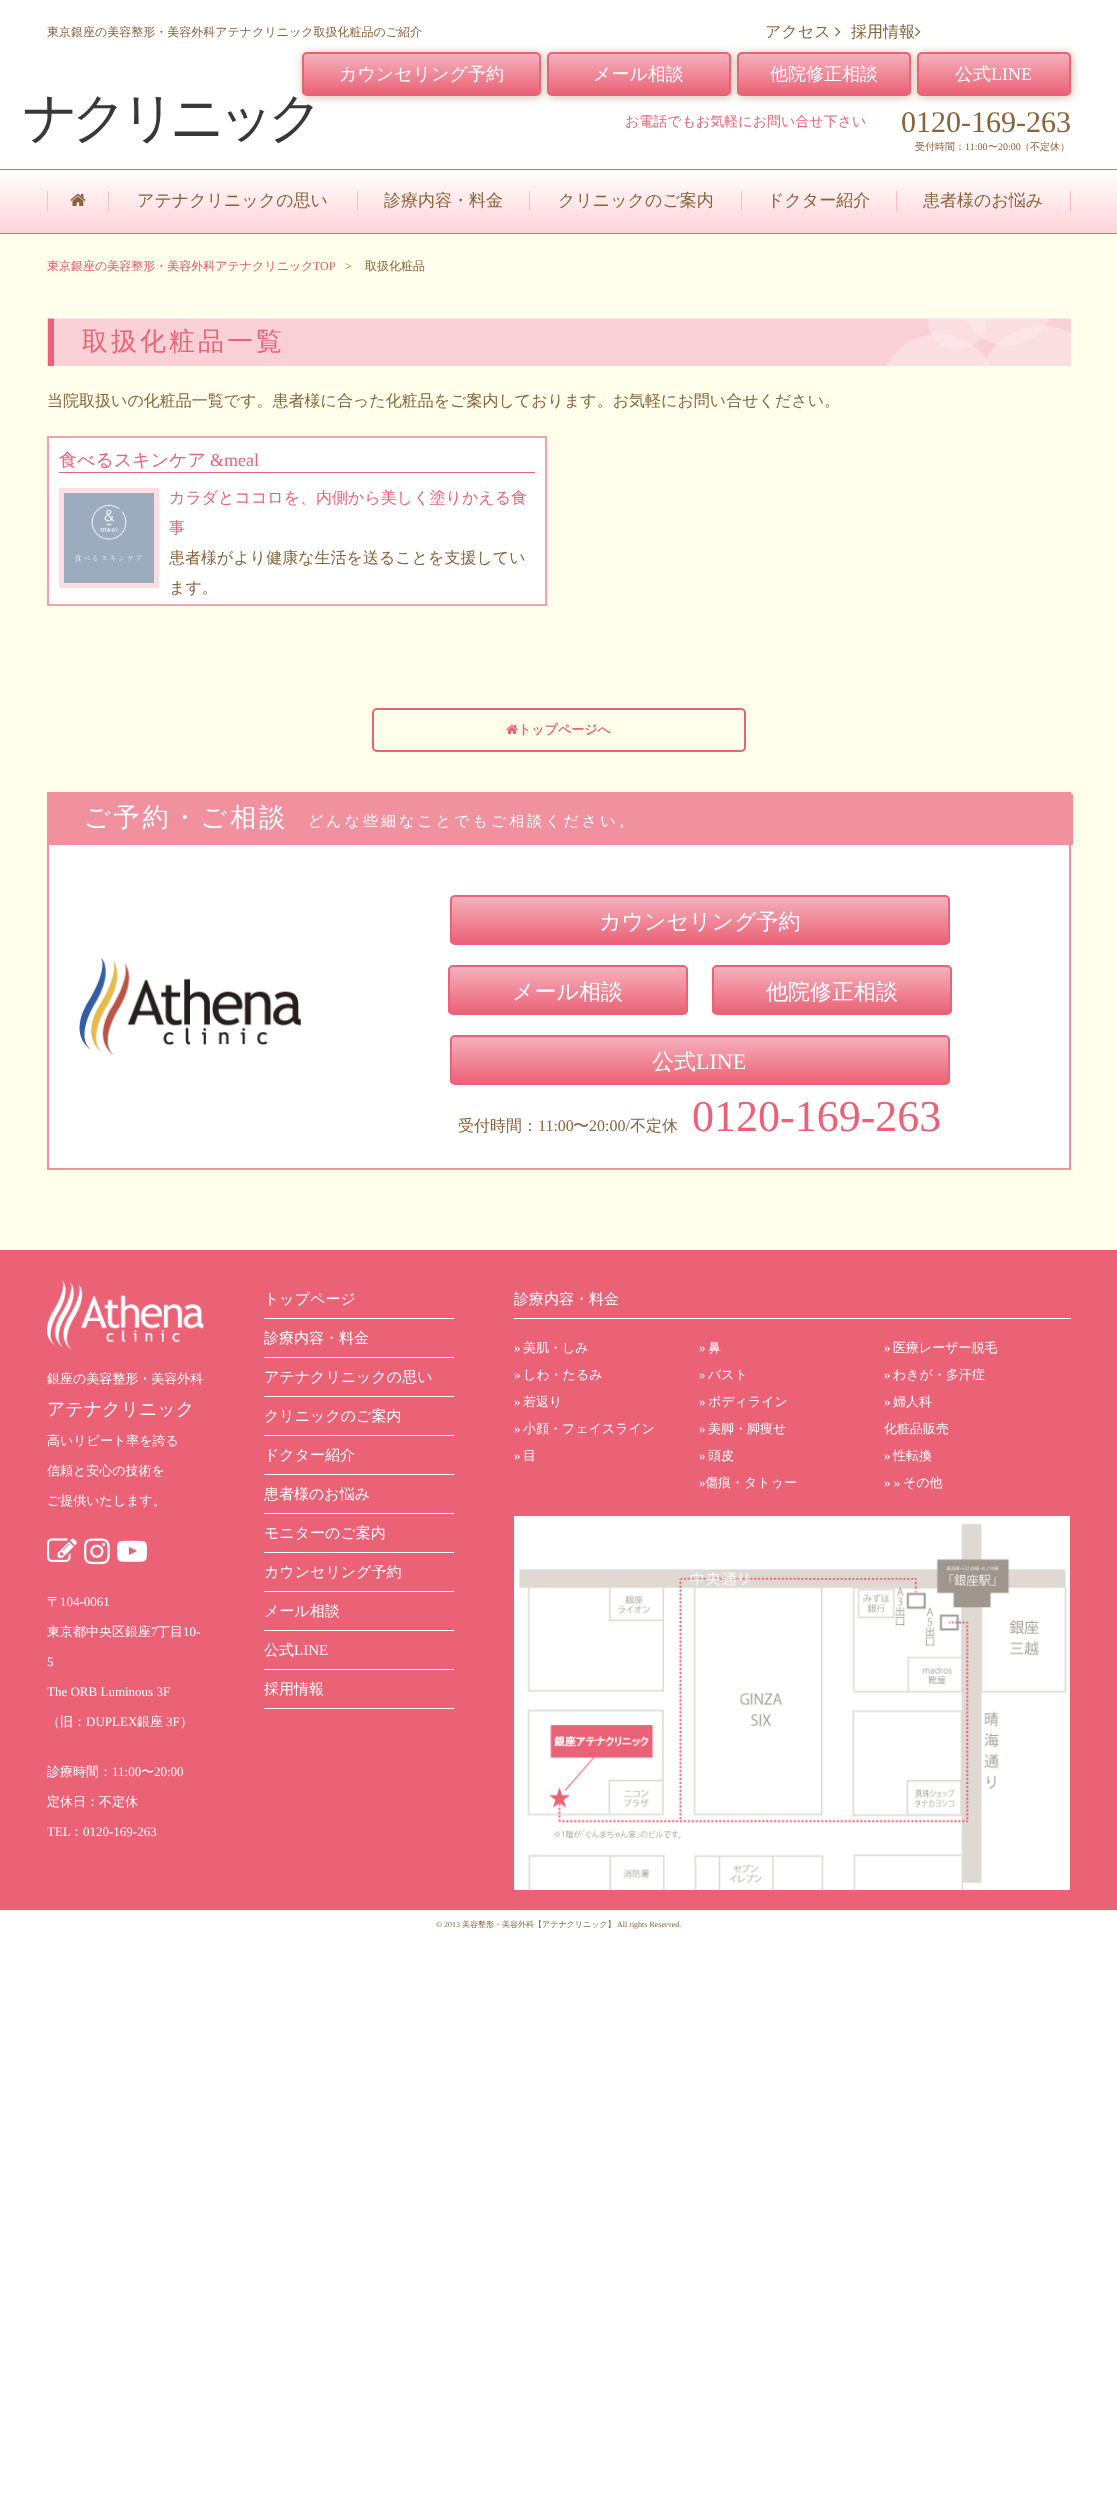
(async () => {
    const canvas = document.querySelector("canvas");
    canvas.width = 1117;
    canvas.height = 2494;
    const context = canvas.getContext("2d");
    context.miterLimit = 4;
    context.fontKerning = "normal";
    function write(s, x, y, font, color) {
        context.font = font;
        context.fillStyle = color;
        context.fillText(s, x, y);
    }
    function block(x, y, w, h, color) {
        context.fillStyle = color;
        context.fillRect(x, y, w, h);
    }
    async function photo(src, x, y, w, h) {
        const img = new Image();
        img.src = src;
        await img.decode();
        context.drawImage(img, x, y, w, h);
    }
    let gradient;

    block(0, 0, 1117, 2494, "rgb(255, 255, 255)");
    write("東京銀座の美容整形・美容外科アテナクリニック取扱化粧品のご紹介", 47, 36, "500 12px WenQuanYi Zen Hei", "rgb(136, 98, 57)");
    context.letterSpacing = "-6.25px";
    write("ナクリニック", 23, 136, "500 54px WenQuanYi Zen Hei", "rgb(56, 56, 56)");
    context.letterSpacing = "0px";
    write("アクセス", 765, 37, "500 16px WenQuanYi Zen Hei", "rgb(136, 98, 57)");
    await photo("media/1.png", 835, 27, 6, 10);
    write("採用情報", 851, 37, "500 16px WenQuanYi Zen Hei", "rgb(136, 98, 57)");
    await photo("media/1.png", 915, 27, 6, 10);
    context.fillStyle = "rgb(209, 189, 168)";
    context.filter = "blur(5px)";
    context.beginPath();
    context.roundRect(303, 53, 239, 44, 5);
    context.fill();
    context.filter = "none";
    context.save();
    context.beginPath();
    context.roundRect(302, 52, 239, 44, 5);
    context.clip();
    gradient = context.createLinearGradient(422, 54, 422, 94);
    gradient.addColorStop(0.01, "rgb(245, 176, 189)");
    gradient.addColorStop(1, "rgb(235, 98, 118)");
    context.fillStyle = gradient;
    context.fillRect(302, 54, 239, 40);
    context.restore();
    context.beginPath();
    context.roundRect(303, 53, 237, 42, 4);
    context.strokeStyle = "rgb(235, 98, 118)";
    context.lineWidth = 2;
    context.stroke();
    write("カウンセリング予約", 339, 80, "500 18px WenQuanYi Zen Hei", "rgb(255, 255, 255)");
    context.fillStyle = "rgb(209, 189, 168)";
    context.filter = "blur(5px)";
    context.beginPath();
    context.roundRect(548, 53, 184, 44, 5);
    context.fill();
    context.filter = "none";
    context.save();
    context.beginPath();
    context.roundRect(547, 52, 184, 44, 5);
    context.clip();
    gradient = context.createLinearGradient(639, 54, 639, 94);
    gradient.addColorStop(0.01, "rgb(245, 176, 189)");
    gradient.addColorStop(1, "rgb(235, 98, 118)");
    context.fillStyle = gradient;
    context.fillRect(547, 54, 184, 40);
    context.restore();
    context.beginPath();
    context.roundRect(548, 53, 182, 42, 4);
    context.stroke();
    write("メール相談", 593, 80, "500 18px WenQuanYi Zen Hei", "rgb(255, 255, 255)");
    context.fillStyle = "rgb(209, 189, 168)";
    context.filter = "blur(5px)";
    context.beginPath();
    context.roundRect(738, 53, 174, 44, 5);
    context.fill();
    context.filter = "none";
    context.save();
    context.beginPath();
    context.roundRect(737, 52, 174, 44, 5);
    context.clip();
    gradient = context.createLinearGradient(824, 54, 824, 94);
    gradient.addColorStop(0.01, "rgb(245, 176, 189)");
    gradient.addColorStop(1, "rgb(235, 98, 118)");
    context.fillStyle = gradient;
    context.fillRect(737, 54, 174, 40);
    context.restore();
    context.beginPath();
    context.roundRect(738, 53, 172, 42, 4);
    context.stroke();
    write("他院修正相談", 770, 80, "500 18px WenQuanYi Zen Hei", "rgb(255, 255, 255)");
    context.fillStyle = "rgb(209, 189, 168)";
    context.filter = "blur(5px)";
    context.beginPath();
    context.roundRect(918, 53, 154, 44, 5);
    context.fill();
    context.filter = "none";
    context.save();
    context.beginPath();
    context.roundRect(917, 52, 154, 44, 5);
    context.clip();
    gradient = context.createLinearGradient(994, 54, 994, 94);
    gradient.addColorStop(0.01, "rgb(245, 176, 189)");
    gradient.addColorStop(1, "rgb(235, 98, 118)");
    context.fillStyle = gradient;
    context.fillRect(917, 54, 154, 40);
    context.restore();
    context.beginPath();
    context.roundRect(918, 53, 152, 42, 4);
    context.stroke();
    write("公式", 955, 80, "500 18px WenQuanYi Zen Hei", "rgb(255, 255, 255)");
    write("LINE", 991, 80, "18px Liberation Serif", "rgb(255, 255, 255)");
    write("お電話でもお気軽にお問い合せ下さい", 625, 126, "500 14px WenQuanYi Zen Hei", "rgb(235, 98, 118)");
    write("0120-169-263", 901, 132, "30px Liberation Serif", "rgb(136, 98, 57)");
    write("受付時間：", 915, 150, "500 10px WenQuanYi Zen Hei", "rgb(136, 98, 57)");
    write("11:00", 965, 150, "10px Liberation Serif", "rgb(136, 98, 57)");
    write("〜", 988, 150, "500 10px WenQuanYi Zen Hei", "rgb(136, 98, 57)");
    write("20:00", 998, 150, "10px Liberation Serif", "rgb(136, 98, 57)");
    write("（不定休）", 1020, 150, "500 10px WenQuanYi Zen Hei", "rgb(136, 98, 57)");
    gradient = context.createLinearGradient(559, 170, 559, 233);
    gradient.addColorStop(0, "rgb(255, 254, 252)");
    gradient.addColorStop(1, "rgb(255, 211, 218)");
    context.fillStyle = gradient;
    context.fillRect(0, 170, 1117, 63);
    block(0, 169, 1117, 1, "rgb(235, 98, 118)");
    block(0, 233, 1117, 1, "rgb(235, 98, 118)");
    block(47, 191, 1, 20, "rgb(247, 192, 200)");
    await photo("media/2.png", 70, 193, 16, 13);
    block(108, 191, 1, 20, "rgb(247, 192, 200)");
    write("アテナクリニックの思い", 137, 206, "500 17px WenQuanYi Zen Hei", "rgb(136, 98, 57)");
    block(357, 191, 1, 20, "rgb(247, 192, 200)");
    write("診療内容・料金", 384, 206, "500 17px WenQuanYi Zen Hei", "rgb(136, 98, 57)");
    block(529, 191, 1, 20, "rgb(247, 192, 200)");
    write("クリニックのご案内", 558, 206, "500 17px WenQuanYi Zen Hei", "rgb(136, 98, 57)");
    block(741, 191, 1, 20, "rgb(247, 192, 200)");
    write("ドクター紹介", 767, 206, "500 17px WenQuanYi Zen Hei", "rgb(136, 98, 57)");
    block(1070, 191, 1, 20, "rgb(247, 192, 200)");
    block(896, 191, 1, 20, "rgb(247, 192, 200)");
    write("患者様のお悩み", 923, 206, "500 17px WenQuanYi Zen Hei", "rgb(136, 98, 57)");
    block(0, 234, 1117, 1016, "rgb(255, 255, 236)");
    write("東京銀座の美容整形・美容外科アテナクリニック", 47, 270, "500 12px WenQuanYi Zen Hei", "rgb(233, 83, 113)");
    write("TOP", 313, 270, "12px Liberation Serif", "rgb(233, 83, 113)");
    write(">", 345, 270, "12px Liberation Serif", "rgb(136, 98, 57)");
    write("取扱化粧品", 365, 270, "500 12px WenQuanYi Zen Hei", "rgb(136, 98, 57)");
    await photo("media/3.png", 47, 318, 1024, 48);
    context.letterSpacing = "3px";
    write("取扱化粧品一覧", 82, 350, "500 26px WenQuanYi Zen Hei", "rgb(235, 98, 118)");
    context.letterSpacing = "0px";
    write("当院取扱いの化粧品一覧です。患者様に合った化粧品をご案内しております。お気軽にお問い合せください。", 47, 406, "500 16px WenQuanYi Zen Hei", "rgb(136, 98, 57)");
    context.fillStyle = "rgb(255, 255, 255)";
    context.beginPath();
    context.rect(48, 437, 498, 168);
    context.fill();
    context.strokeStyle = "rgb(243, 161, 173)";
    context.stroke();
    block(59, 472, 476, 1, "rgb(235, 98, 118)");
    write("食べるスキンケア", 59, 466, "500 18px WenQuanYi Zen Hei", "rgb(235, 98, 118)");
    write("&meal", 210, 466, "18px Liberation Serif", "rgb(235, 98, 118)");
    context.strokeStyle = "rgb(251, 222, 226)";
    context.lineWidth = 5;
    context.strokeRect(61.5, 490.5, 95, 95);
    await photo("media/4.png", 64, 493, 90, 90);
    write("カラダとココロを、内側から美しく塗りかえる⾷", 169, 503, "500 16px WenQuanYi Zen Hei", "rgb(235, 98, 118)");
    write("事", 169, 533, "500 16px WenQuanYi Zen Hei", "rgb(235, 98, 118)");
    write("患者様がより健康な⽣活を送ることを⽀援してい", 169, 563, "500 16px WenQuanYi Zen Hei", "rgb(136, 98, 57)");
    write("ます。", 169, 593, "500 16px WenQuanYi Zen Hei", "rgb(136, 98, 57)");
    context.beginPath();
    context.roundRect(373, 709, 372, 42, 4);
    context.strokeStyle = "rgb(235, 98, 118)";
    context.lineWidth = 2;
    context.stroke();
    await photo("media/5.png", 506, 724, 12, 10);
    write("トップページへ", 518, 734, "bold 13px WenQuanYi Zen Hei", "rgb(235, 98, 118)");
    context.strokeStyle = "rgb(241, 145, 159)";
    context.strokeRect(48, 793, 1022, 376);
    block(49, 794, 1024, 51, "rgb(241, 145, 159)");
    context.letterSpacing = "3px";
    write("ご予約・ご相談", 84, 826, "500 26px WenQuanYi Zen Hei", "rgb(255, 255, 255)");
    write("どんな些細なことでもご相談ください。", 308, 826, "500 15px WenQuanYi Zen Hei", "rgb(255, 255, 255)");
    block(49, 845, 1020, 323, "rgb(255, 255, 255)");
    await photo("media/6.png", 79, 958, 222, 97);
    context.save();
    context.beginPath();
    context.roundRect(450, 895, 500, 50, 5);
    context.clip();
    gradient = context.createLinearGradient(700, 897, 700, 943);
    gradient.addColorStop(0.01, "rgb(245, 176, 189)");
    gradient.addColorStop(1, "rgb(235, 98, 118)");
    context.fillStyle = gradient;
    context.fillRect(450, 897, 500, 46);
    context.restore();
    context.beginPath();
    context.roundRect(451, 896, 498, 48, 4);
    context.strokeStyle = "rgb(235, 98, 118)";
    context.stroke();
    context.letterSpacing = "0px";
    write("カウンセリング予約", 599, 929, "500 22px WenQuanYi Zen Hei", "rgb(255, 255, 255)");
    context.save();
    context.beginPath();
    context.roundRect(448, 965, 240, 50, 5);
    context.clip();
    gradient = context.createLinearGradient(568, 967, 568, 1013);
    gradient.addColorStop(0.01, "rgb(245, 176, 189)");
    gradient.addColorStop(1, "rgb(235, 98, 118)");
    context.fillStyle = gradient;
    context.fillRect(448, 967, 240, 46);
    context.restore();
    context.beginPath();
    context.roundRect(449, 966, 238, 48, 4);
    context.stroke();
    write("メール相談", 512, 999, "500 22px WenQuanYi Zen Hei", "rgb(255, 255, 255)");
    context.save();
    context.beginPath();
    context.roundRect(712, 965, 240, 50, 5);
    context.clip();
    gradient = context.createLinearGradient(832, 967, 832, 1013);
    gradient.addColorStop(0.01, "rgb(245, 176, 189)");
    gradient.addColorStop(1, "rgb(235, 98, 118)");
    context.fillStyle = gradient;
    context.fillRect(712, 967, 240, 46);
    context.restore();
    context.beginPath();
    context.roundRect(713, 966, 238, 48, 4);
    context.stroke();
    write("他院修正相談", 766, 999, "500 22px WenQuanYi Zen Hei", "rgb(255, 255, 255)");
    context.save();
    context.beginPath();
    context.roundRect(450, 1035, 500, 50, 5);
    context.clip();
    gradient = context.createLinearGradient(700, 1037, 700, 1083);
    gradient.addColorStop(0.01, "rgb(245, 176, 189)");
    gradient.addColorStop(1, "rgb(235, 98, 118)");
    context.fillStyle = gradient;
    context.fillRect(450, 1037, 500, 46);
    context.restore();
    context.beginPath();
    context.roundRect(451, 1036, 498, 48, 4);
    context.stroke();
    write("公式", 652, 1069, "500 22px WenQuanYi Zen Hei", "rgb(255, 255, 255)");
    write("LINE", 696, 1069, "22px Liberation Serif", "rgb(255, 255, 255)");
    write("受付時間：", 458, 1131, "500 16px WenQuanYi Zen Hei", "rgb(136, 98, 57)");
    write("11:00", 538, 1131, "16px Liberation Serif", "rgb(136, 98, 57)");
    write("〜", 573, 1131, "500 16px WenQuanYi Zen Hei", "rgb(136, 98, 57)");
    write("20:00/", 589, 1131, "16px Liberation Serif", "rgb(136, 98, 57)");
    write("不定休", 630, 1131, "500 16px WenQuanYi Zen Hei", "rgb(136, 98, 57)");
    write("0120-169-263", 692, 1131, "44px Liberation Serif", "rgb(235, 98, 118)");
    block(0, 1250, 1117, 660, "rgb(235, 98, 118)");
    await photo("media/7.png", 47, 1280, 157, 69);
    write("銀座の美容整形・美容外科", 47, 1383, "500 13px WenQuanYi Zen Hei", "rgb(255, 255, 255)");
    write("アテナクリニック", 47, 1415, "500 18px WenQuanYi Zen Hei", "rgb(255, 255, 255)");
    write("高いリピート率を誇る", 47, 1445, "500 13px WenQuanYi Zen Hei", "rgb(255, 255, 255)");
    write("信頼と安心の技術を", 47, 1475, "500 13px WenQuanYi Zen Hei", "rgb(255, 255, 255)");
    write("ご提供いたします。", 47, 1505, "500 13px WenQuanYi Zen Hei", "rgb(255, 255, 255)");
    await photo("media/8.png", 47, 1538, 30, 24);
    await photo("media/9.png", 84, 1538, 26, 27);
    await photo("media/10.png", 117, 1540, 30, 22);
    write("〒", 47, 1606, "500 13px WenQuanYi Zen Hei", "rgb(255, 255, 255)");
    write("104-0061", 60, 1606, "13px Liberation Serif", "rgb(255, 255, 255)");
    write("東京都中央区銀座", 47, 1636, "500 13px WenQuanYi Zen Hei", "rgb(255, 255, 255)");
    write("7", 151, 1636, "13px Liberation Serif", "rgb(255, 255, 255)");
    write("丁目", 157, 1636, "500 13px WenQuanYi Zen Hei", "rgb(255, 255, 255)");
    write("10-", 183, 1636, "13px Liberation Serif", "rgb(255, 255, 255)");
    write("5", 47, 1666, "13px Liberation Serif", "rgb(255, 255, 255)");
    write("The ORB Luminous 3F", 47, 1696, "13px Liberation Serif", "rgb(255, 255, 255)");
    write("（旧：", 47, 1726, "500 13px WenQuanYi Zen Hei", "rgb(255, 255, 255)");
    write("DUPLEX", 86, 1726, "13px Liberation Serif", "rgb(255, 255, 255)");
    write("銀座", 137, 1726, "500 13px WenQuanYi Zen Hei", "rgb(255, 255, 255)");
    write("3F", 166, 1726, "13px Liberation Serif", "rgb(255, 255, 255)");
    write("）", 180, 1726, "500 13px WenQuanYi Zen Hei", "rgb(255, 255, 255)");
    write("診療時間：", 47, 1776, "500 13px WenQuanYi Zen Hei", "rgb(255, 255, 255)");
    write("11:00", 112, 1776, "13px Liberation Serif", "rgb(255, 255, 255)");
    write("〜", 141, 1776, "500 13px WenQuanYi Zen Hei", "rgb(255, 255, 255)");
    write("20:00", 154, 1776, "13px Liberation Serif", "rgb(255, 255, 255)");
    write("定休日：不定休", 47, 1806, "500 13px WenQuanYi Zen Hei", "rgb(255, 255, 255)");
    write("TEL", 47, 1836, "13px Liberation Serif", "rgb(255, 255, 255)");
    write("：", 70, 1836, "500 13px WenQuanYi Zen Hei", "rgb(255, 255, 255)");
    write("0120-169-263", 83, 1836, "13px Liberation Serif", "rgb(255, 255, 255)");
    block(264, 1318, 190, 1, "rgb(255, 255, 255)");
    write("トップページ", 264, 1304, "500 15px WenQuanYi Zen Hei", "rgb(255, 255, 255)");
    block(264, 1357, 190, 1, "rgb(255, 255, 255)");
    write("診療内容・料金", 264, 1343, "500 15px WenQuanYi Zen Hei", "rgb(255, 255, 255)");
    block(264, 1396, 190, 1, "rgb(255, 255, 255)");
    write("アテナクリニックの思い", 264, 1382, "500 15px WenQuanYi Zen Hei", "rgb(255, 255, 255)");
    block(264, 1435, 190, 1, "rgb(255, 255, 255)");
    write("クリニックのご案内", 264, 1421, "500 15px WenQuanYi Zen Hei", "rgb(255, 255, 255)");
    block(264, 1474, 190, 1, "rgb(255, 255, 255)");
    write("ドクター紹介", 264, 1460, "500 15px WenQuanYi Zen Hei", "rgb(255, 255, 255)");
    block(264, 1513, 190, 1, "rgb(255, 255, 255)");
    write("患者様のお悩み", 264, 1499, "500 15px WenQuanYi Zen Hei", "rgb(255, 255, 255)");
    block(264, 1552, 190, 1, "rgb(255, 255, 255)");
    write("モニターのご案内", 264, 1538, "500 15px WenQuanYi Zen Hei", "rgb(255, 255, 255)");
    block(264, 1591, 190, 1, "rgb(255, 255, 255)");
    write("カウンセリング予約", 264, 1577, "500 15px WenQuanYi Zen Hei", "rgb(255, 255, 255)");
    block(264, 1630, 190, 1, "rgb(255, 255, 255)");
    write("メール相談", 264, 1616, "500 15px WenQuanYi Zen Hei", "rgb(255, 255, 255)");
    block(264, 1669, 190, 1, "rgb(255, 255, 255)");
    write("公式", 264, 1655, "500 15px WenQuanYi Zen Hei", "rgb(255, 255, 255)");
    write("LINE", 294, 1655, "15px Liberation Serif", "rgb(255, 255, 255)");
    block(264, 1708, 190, 1, "rgb(255, 255, 255)");
    write("採用情報", 264, 1694, "500 15px WenQuanYi Zen Hei", "rgb(255, 255, 255)");
    block(514, 1318, 557, 1, "rgb(255, 255, 255)");
    write("診療内容・料金", 514, 1304, "500 15px WenQuanYi Zen Hei", "rgb(255, 255, 255)");
    write("»", 514, 1352, "13px Liberation Serif", "rgb(255, 255, 255)");
    write("美肌・しみ", 523, 1352, "500 13px WenQuanYi Zen Hei", "rgb(255, 255, 255)");
    write("»", 514, 1379, "13px Liberation Serif", "rgb(255, 255, 255)");
    write("しわ・たるみ", 523, 1379, "500 13px WenQuanYi Zen Hei", "rgb(255, 255, 255)");
    write("»", 514, 1406, "13px Liberation Serif", "rgb(255, 255, 255)");
    write("若返り", 523, 1406, "500 13px WenQuanYi Zen Hei", "rgb(255, 255, 255)");
    write("»", 514, 1433, "13px Liberation Serif", "rgb(255, 255, 255)");
    write("小顔・フェイスライン", 523, 1433, "500 13px WenQuanYi Zen Hei", "rgb(255, 255, 255)");
    write("»", 514, 1460, "13px Liberation Serif", "rgb(255, 255, 255)");
    write("目", 523, 1460, "500 13px WenQuanYi Zen Hei", "rgb(255, 255, 255)");
    write("»", 699, 1352, "13px Liberation Serif", "rgb(255, 255, 255)");
    write("鼻", 708, 1352, "500 13px WenQuanYi Zen Hei", "rgb(255, 255, 255)");
    write("»", 699, 1379, "13px Liberation Serif", "rgb(255, 255, 255)");
    write("バスト", 708, 1379, "500 13px WenQuanYi Zen Hei", "rgb(255, 255, 255)");
    write("»", 699, 1406, "13px Liberation Serif", "rgb(255, 255, 255)");
    write("ボディライン", 708, 1406, "500 13px WenQuanYi Zen Hei", "rgb(255, 255, 255)");
    write("»", 699, 1433, "13px Liberation Serif", "rgb(255, 255, 255)");
    write("美脚・脚痩せ", 708, 1433, "500 13px WenQuanYi Zen Hei", "rgb(255, 255, 255)");
    write("»", 699, 1460, "13px Liberation Serif", "rgb(255, 255, 255)");
    write("頭皮", 708, 1460, "500 13px WenQuanYi Zen Hei", "rgb(255, 255, 255)");
    write("»", 699, 1487, "13px Liberation Serif", "rgb(255, 255, 255)");
    write("傷痕・タトゥー", 705, 1487, "500 13px WenQuanYi Zen Hei", "rgb(255, 255, 255)");
    write("»", 884, 1352, "13px Liberation Serif", "rgb(255, 255, 255)");
    write("医療レーザー脱毛", 893, 1352, "500 13px WenQuanYi Zen Hei", "rgb(255, 255, 255)");
    write("»", 884, 1379, "13px Liberation Serif", "rgb(255, 255, 255)");
    write("わきが・多汗症", 893, 1379, "500 13px WenQuanYi Zen Hei", "rgb(255, 255, 255)");
    write("»", 884, 1406, "13px Liberation Serif", "rgb(255, 255, 255)");
    write("婦人科", 893, 1406, "500 13px WenQuanYi Zen Hei", "rgb(255, 255, 255)");
    write("化粧品販売", 884, 1433, "500 13px WenQuanYi Zen Hei", "rgb(255, 255, 255)");
    write("»", 884, 1460, "13px Liberation Serif", "rgb(255, 255, 255)");
    write("性転換", 893, 1460, "500 13px WenQuanYi Zen Hei", "rgb(255, 255, 255)");
    write("» »", 884, 1487, "13px Liberation Serif", "rgb(255, 255, 255)");
    write("その他", 903, 1487, "500 13px WenQuanYi Zen Hei", "rgb(255, 255, 255)");
    await photo("media/11.png", 514, 1516, 556, 374);
    write("© 2013", 436, 1927, "8px Liberation Serif", "rgb(136, 98, 57)");
    write("美容整形・美容外科【アテナクリニック】", 462, 1927, "500 8px WenQuanYi Zen Hei", "rgb(136, 98, 57)");
    write("All rights Reserved.", 617, 1927, "8px Liberation Serif", "rgb(136, 98, 57)");
})();
